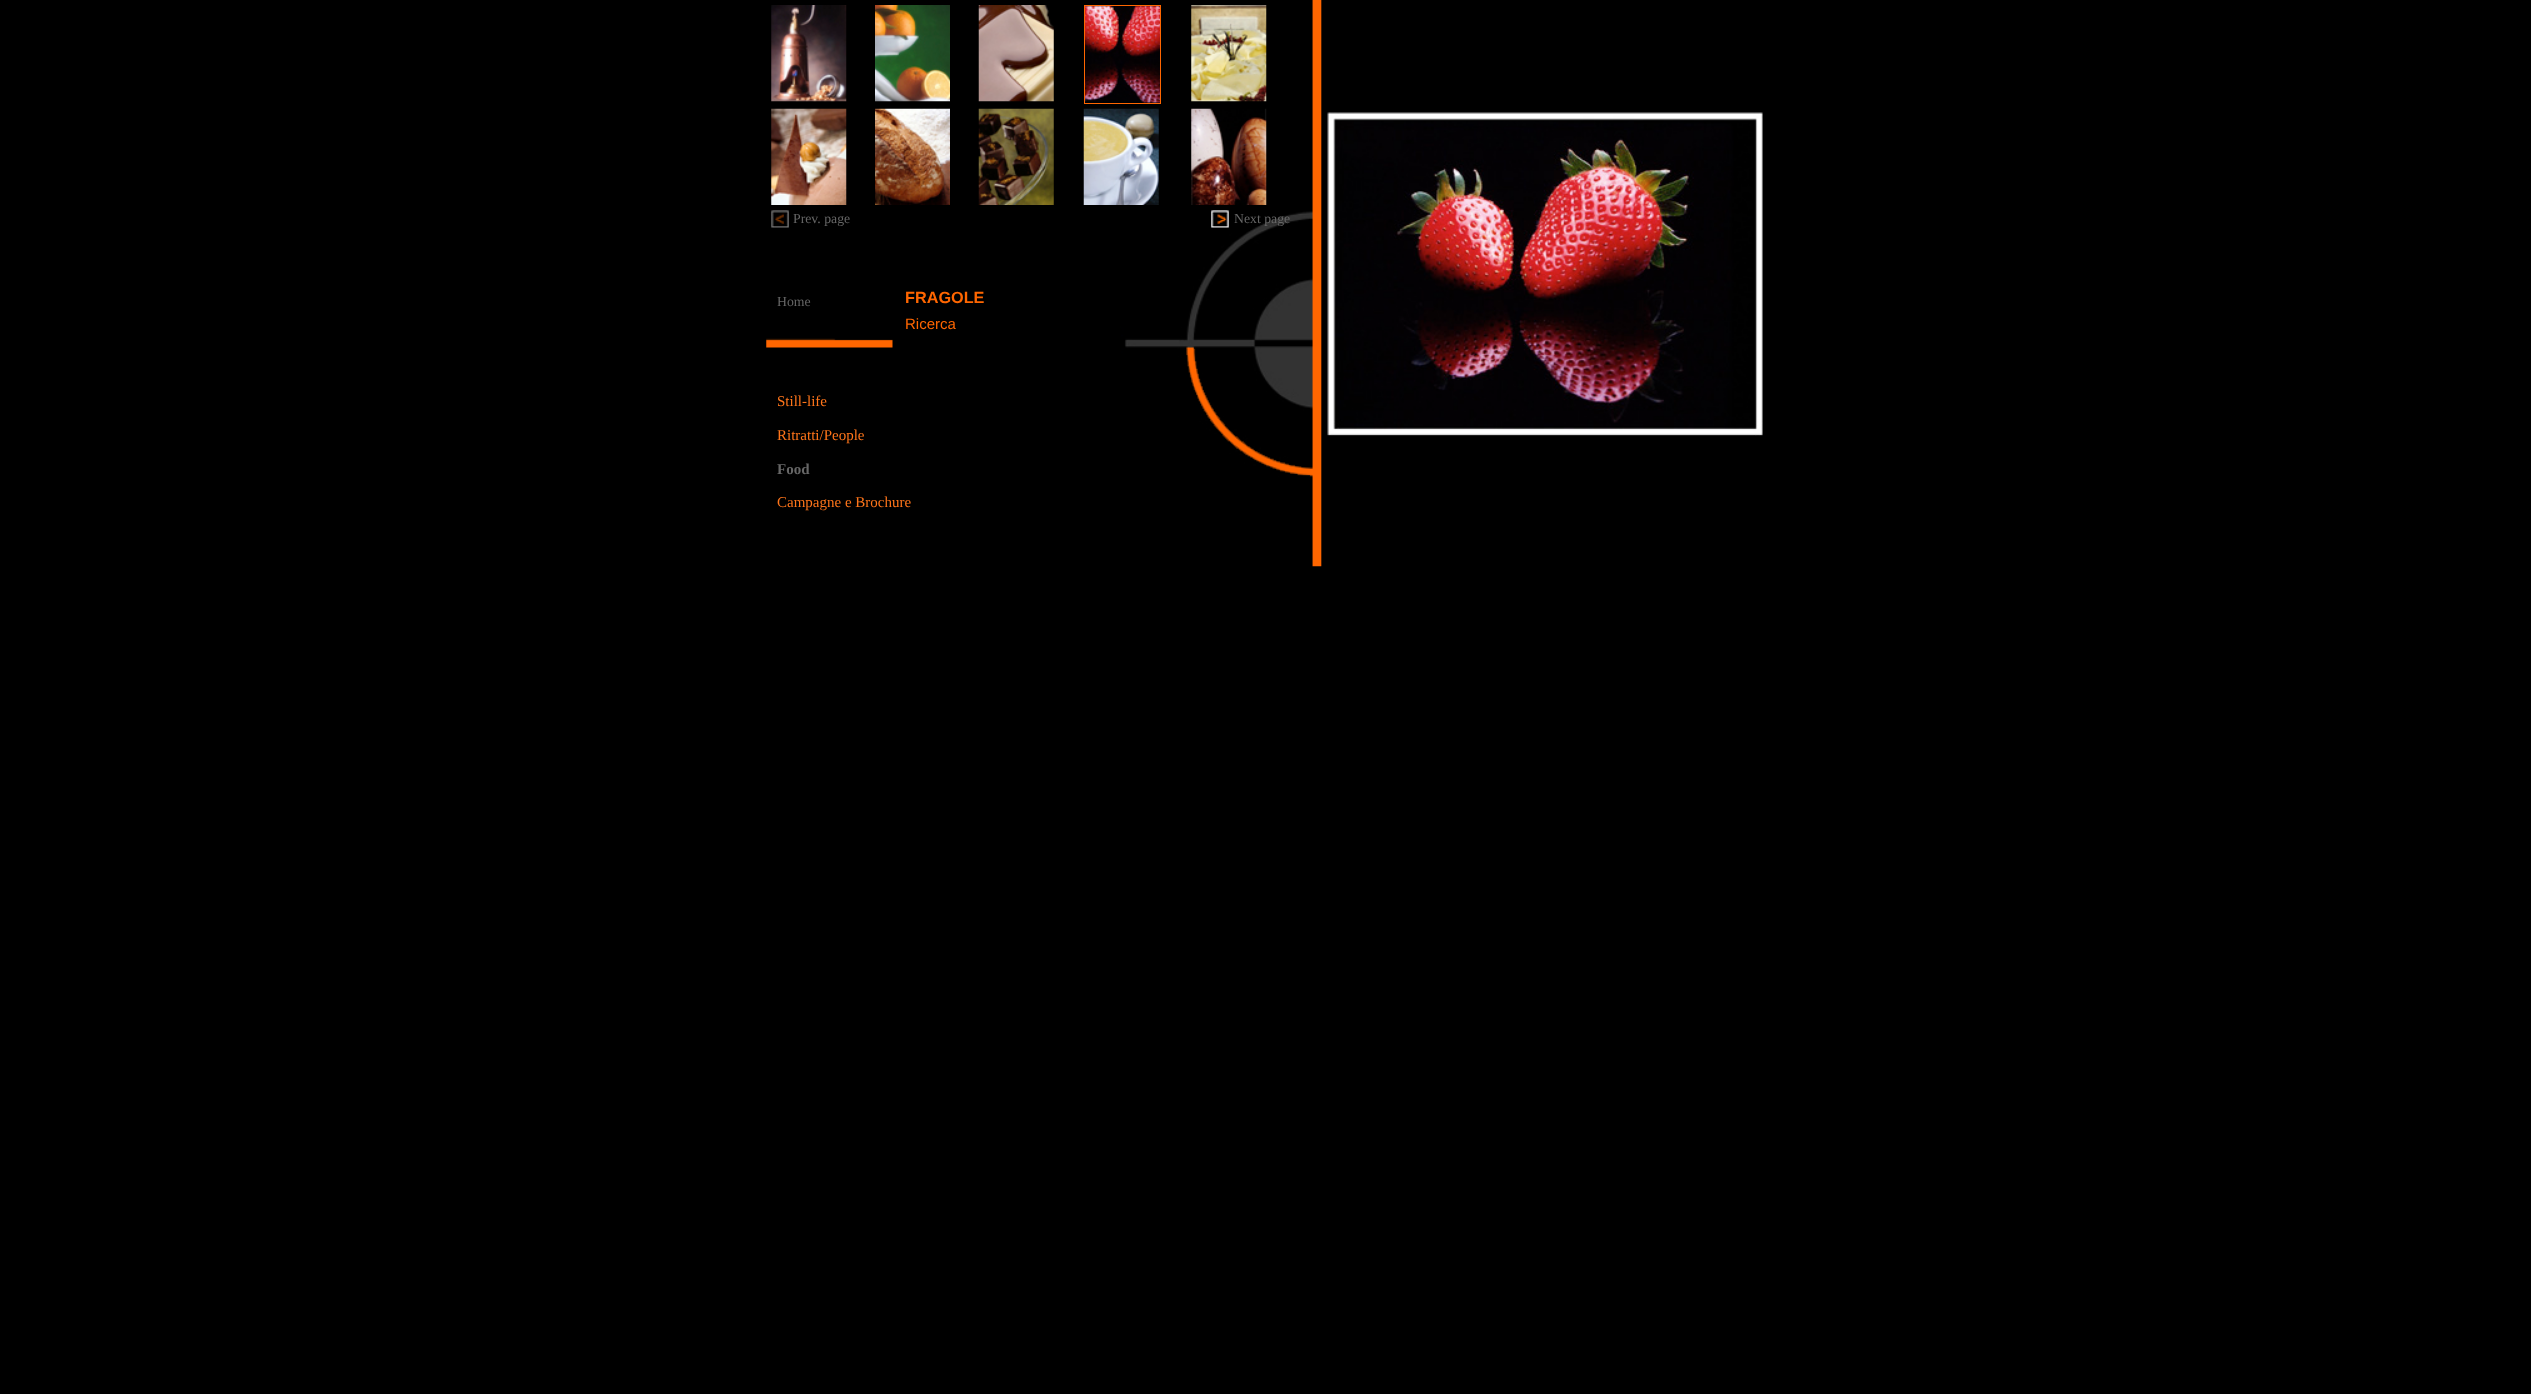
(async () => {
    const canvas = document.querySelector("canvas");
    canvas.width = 2531;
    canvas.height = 1394;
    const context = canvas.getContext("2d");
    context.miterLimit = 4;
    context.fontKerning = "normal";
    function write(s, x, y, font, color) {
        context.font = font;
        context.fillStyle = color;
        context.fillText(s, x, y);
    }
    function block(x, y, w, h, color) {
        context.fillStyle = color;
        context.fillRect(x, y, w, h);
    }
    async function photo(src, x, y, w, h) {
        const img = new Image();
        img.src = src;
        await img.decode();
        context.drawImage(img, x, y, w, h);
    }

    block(0, 0, 2531, 1394, "rgb(0, 0, 0)");
    await photo("media/1.png", 766, 0, 556, 567);
    await photo("media/2.png", 771, 5, 76, 97);
    await photo("media/3.png", 875, 5, 75, 97);
    await photo("media/4.png", 978, 5, 76, 97);
    context.strokeStyle = "rgb(255, 102, 0)";
    context.strokeRect(1084.5, 5.5, 76, 98);
    await photo("media/5.png", 1085, 6, 75, 97);
    await photo("media/6.png", 1191, 5, 76, 97);
    await photo("media/7.png", 771, 108, 76, 97);
    await photo("media/8.png", 875, 108, 75, 97);
    await photo("media/9.png", 978, 108, 76, 97);
    await photo("media/10.png", 1083, 108, 76, 97);
    await photo("media/11.png", 1191, 108, 76, 97);
    await photo("media/12.png", 771, 210, 18, 18);
    write("Prev. page", 793, 223, "13.75px Liberation Serif", "rgb(102, 102, 102)");
    await photo("media/13.png", 1211, 210, 18, 18);
    write("Next page", 1234, 223, "13.75px Liberation Serif", "rgb(102, 102, 102)");
    await photo("media/14.png", 1327, 112, 436, 324);
    write("Home", 777, 306, "13.75px Liberation Serif", "rgb(102, 102, 102)");
    write("FRAGOLE", 905, 303, "bold 16.25px Liberation Sans", "rgb(255, 102, 0)");
    write("Ricerca", 905, 329, "15px Liberation Sans", "rgb(255, 102, 0)");
    write("Still-life", 777, 406, "15px Liberation Serif", "rgb(255, 117, 26)");
    write("Ritratti/People", 777, 440, "15px Liberation Serif", "rgb(255, 117, 26)");
    write("Food", 777, 474, "bold 15px Liberation Serif", "rgb(102, 102, 102)");
    write("Campagne e Brochure", 777, 507, "15px Liberation Serif", "rgb(255, 117, 26)");
})();
